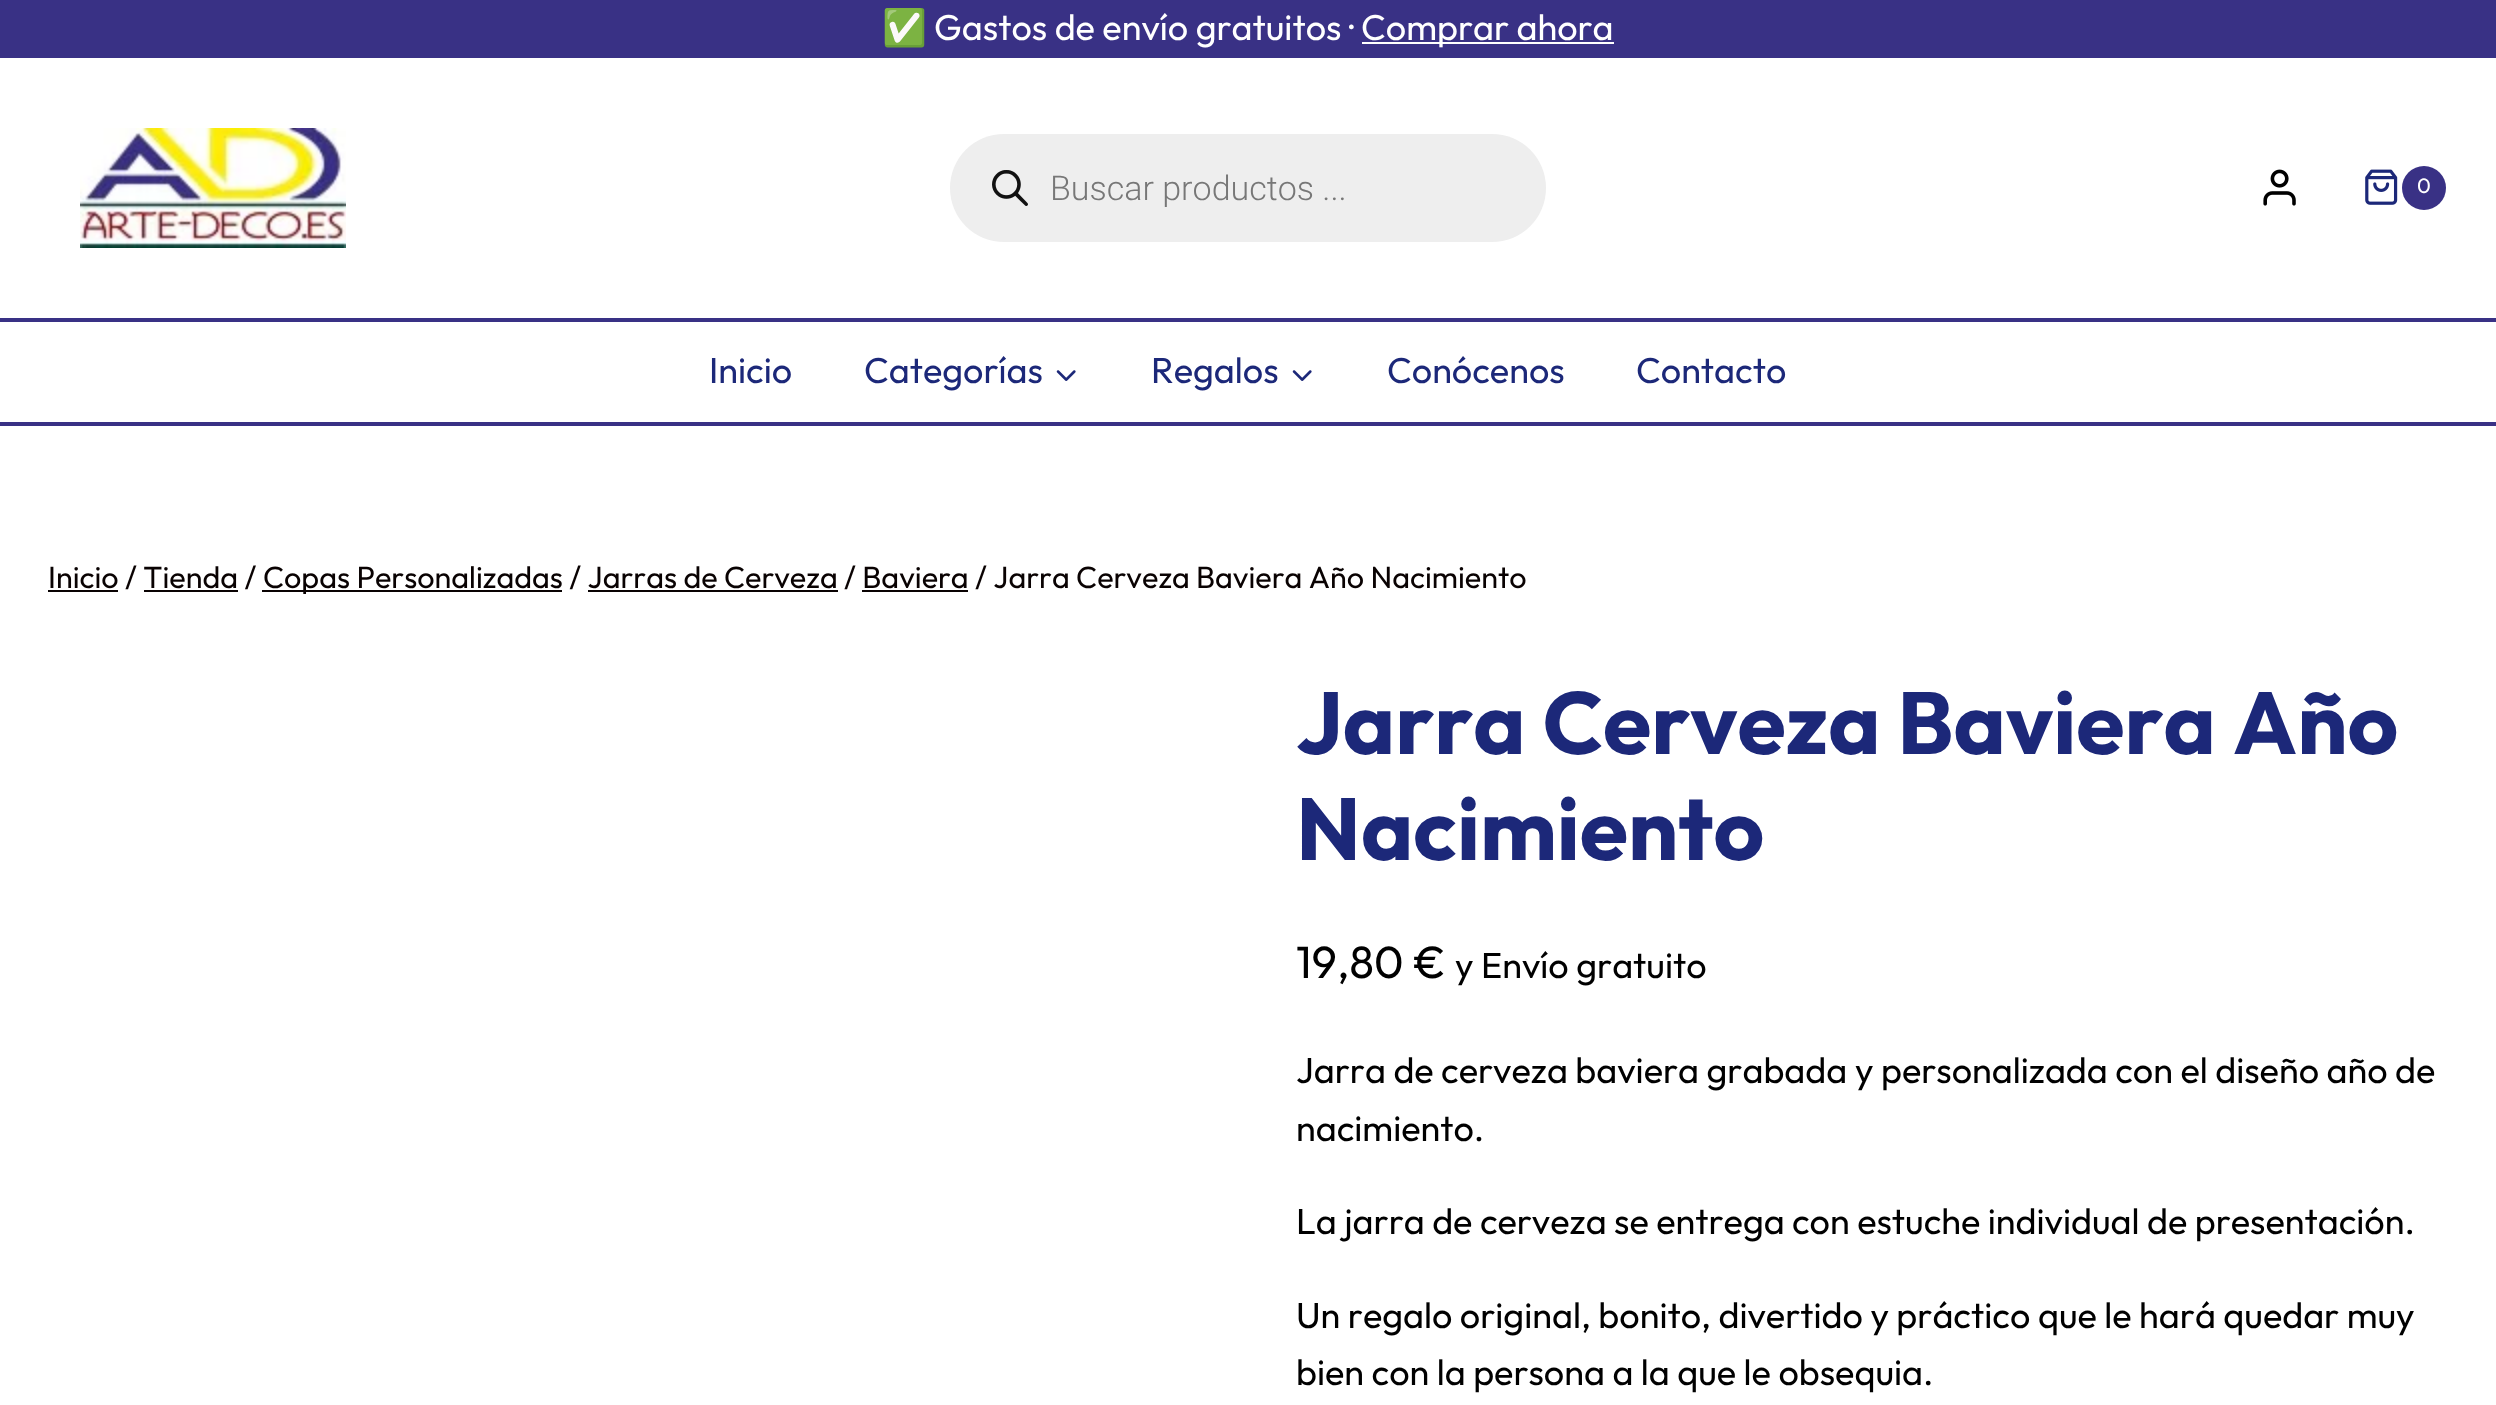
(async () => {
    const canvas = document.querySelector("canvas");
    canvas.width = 2496;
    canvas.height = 1405;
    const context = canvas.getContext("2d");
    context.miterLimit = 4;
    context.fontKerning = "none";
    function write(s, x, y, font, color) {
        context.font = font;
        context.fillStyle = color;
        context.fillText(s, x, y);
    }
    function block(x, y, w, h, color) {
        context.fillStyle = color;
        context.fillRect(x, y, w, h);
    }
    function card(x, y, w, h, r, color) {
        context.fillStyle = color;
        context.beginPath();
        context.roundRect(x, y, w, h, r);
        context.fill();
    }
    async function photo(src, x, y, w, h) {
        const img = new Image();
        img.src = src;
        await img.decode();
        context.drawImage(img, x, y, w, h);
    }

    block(0, 0, 2496, 1405, "rgb(255, 255, 255)");
    block(0, 0, 2496, 58, "rgb(57, 49, 133)");
    write("✅", 882, 40, "36px Noto Color Emoji", "rgb(255, 255, 255)");
    write("Gastos de envío gratuitos ·", 934, 40, "36px Outfit", "rgb(255, 255, 255)");
    block(1362, 42, 252, 2, "rgb(255, 255, 255)");
    write("Comprar ahora", 1361, 40, "36px Outfit", "rgb(255, 255, 255)");
    await photo("media/1.png", 80, 128, 266, 120);
    card(950, 134, 596, 108, 54, "rgb(238, 238, 238)");
    await photo("media/2.png", 992, 170, 36, 36);
    write("Buscar productos ...", 1050, 200, "300 34px Roboto", "rgb(119, 119, 119)");
    await photo("media/3.png", 2263, 169, 33, 37);
    await photo("media/4.png", 2365, 169, 33, 36);
    context.fillStyle = "rgb(57, 49, 133)";
    context.beginPath();
    context.arc(2424, 188, 22, 0, Math.PI * 2);
    context.fill();
    write("0", 2417, 193, "21px Outfit", "rgb(255, 255, 255)");
    block(0, 318, 2496, 4, "rgb(57, 49, 133)");
    block(0, 422, 2496, 4, "rgb(57, 49, 133)");
    write("Inicio", 709, 383, "36px Outfit", "rgb(28, 40, 121)");
    write("Categorías", 864, 383, "36px Outfit", "rgb(28, 40, 121)");
    await photo("media/5.png", 1056, 370, 20, 11);
    write("Regalos", 1151, 383, "36px Outfit", "rgb(28, 40, 121)");
    await photo("media/5.png", 1292, 370, 20, 11);
    write("Conócenos", 1387, 383, "36px Outfit", "rgb(28, 40, 121)");
    write("Contacto", 1636, 383, "36px Outfit", "rgb(28, 40, 121)");
    write("Inicio / Tienda /", 48, 588, "30.6px Outfit", "rgb(9, 2, 2)");
    block(48, 590, 70, 2, "rgb(9, 2, 2)");
    block(262, 590, 300, 2, "rgb(9, 2, 2)");
    write("Copas Personalizadas / Jarras de Cerveza", 263, 588, "30.6px Outfit", "rgb(9, 2, 2)");
    write("/ Baviera / Jarra Cerveza", 844, 588, "30.6px Outfit", "rgb(9, 2, 2)");
    write("Baviera Año Nacimiento", 1196, 588, "30.6px Outfit", "rgb(9, 2, 2)");
    block(144, 590, 94, 2, "rgb(9, 2, 2)");
    block(588, 590, 250, 2, "rgb(9, 2, 2)");
    block(862, 590, 106, 2, "rgb(9, 2, 2)");
    write("Jarra Cerveza Baviera", 1296, 754, "bold 88px Outfit", "rgb(28, 40, 121)");
    write("Año", 2233, 754, "bold 88px Outfit", "rgb(28, 40, 121)");
    write("Nacimiento", 1296, 860, "bold 88px Outfit", "rgb(28, 40, 121)");
    write("19,80 €", 1296, 978, "45px Outfit", "rgb(0, 0, 0)");
    write("y Envío gratuito", 1455, 978, "36px Outfit", "rgb(0, 0, 0)");
    write("Jarra de cerveza baviera grabada", 1296, 1083, "36px Outfit", "rgb(0, 0, 0)");
    write("y personalizada con el diseño año de", 1855, 1083, "36px Outfit", "rgb(0, 0, 0)");
    write("nacimiento.", 1296, 1141, "36px Outfit", "rgb(0, 0, 0)");
    write("La jarra de cerveza se entrega", 1296, 1234, "36px Outfit", "rgb(0, 0, 0)");
    write("con estuche individual de presentación.", 1792, 1234, "36px Outfit", "rgb(0, 0, 0)");
    write("Un regalo original, bonito, divertido y práctico", 1296, 1328, "36px Outfit", "rgb(0, 0, 0)");
    write("que le hará quedar muy", 2038, 1328, "36px Outfit", "rgb(0, 0, 0)");
    write("bien con la persona a la que le obsequia.", 1296, 1385, "36px Outfit", "rgb(0, 0, 0)");
})();
